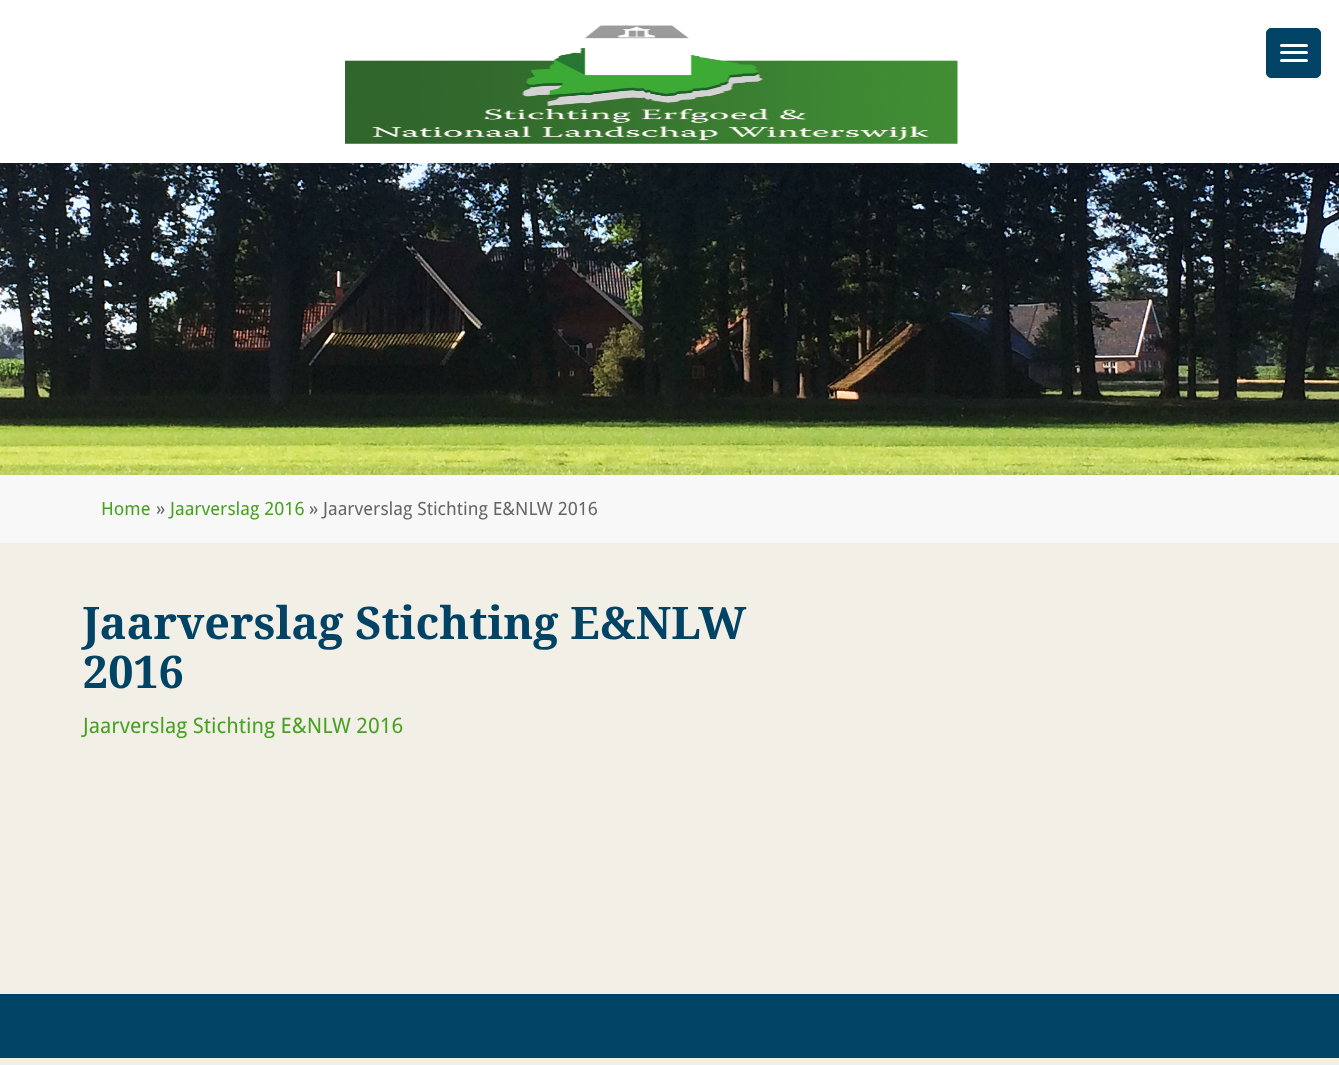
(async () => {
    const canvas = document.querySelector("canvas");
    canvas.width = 1339;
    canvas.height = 1065;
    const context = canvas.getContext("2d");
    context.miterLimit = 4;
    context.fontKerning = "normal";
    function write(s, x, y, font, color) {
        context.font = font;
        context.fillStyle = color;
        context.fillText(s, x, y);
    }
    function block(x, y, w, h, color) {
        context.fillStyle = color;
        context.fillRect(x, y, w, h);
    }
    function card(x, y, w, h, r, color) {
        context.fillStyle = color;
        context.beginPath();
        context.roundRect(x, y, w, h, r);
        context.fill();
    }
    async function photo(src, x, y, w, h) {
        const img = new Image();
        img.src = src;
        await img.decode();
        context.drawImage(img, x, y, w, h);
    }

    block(0, 0, 1339, 1065, "rgb(242, 239, 231)");
    block(0, 0, 1339, 163, "rgb(255, 255, 255)");
    await photo("media/1.png", 345, 25, 613, 119);
    context.fillStyle = "rgb(0, 67, 100)";
    context.beginPath();
    context.roundRect(1266.5, 28.5, 54, 49, 4.5);
    context.fill();
    context.strokeStyle = "rgb(0, 67, 100)";
    context.stroke();
    card(1280, 44, 28, 3, 1.5, "rgb(255, 255, 255)");
    card(1280, 51, 28, 3, 1.5, "rgb(255, 255, 255)");
    card(1280, 59, 28, 3, 1.5, "rgb(255, 255, 255)");
    await photo("media/2.png", 0, 163, 1339, 312);
    block(0, 475, 1339, 68, "rgb(248, 248, 248)");
    write("Home", 101, 515, "18.25px Droid Sans", "rgb(71, 162, 33)");
    write("»", 156, 515, "19px Droid Sans", "rgb(102, 102, 102)");
    write("Jaarverslag 2016", 170, 515, "18.25px Droid Sans", "rgb(71, 162, 33)");
    write("»", 309, 515, "19px Droid Sans", "rgb(102, 102, 102)");
    write("Jaarverslag Stichting E&NLW 2016", 323, 515, "18.25px Droid Sans", "rgb(102, 102, 102)");
    write("Jaarverslag Stichting E&NLW", 83, 639, "bold 45px Droid Serif", "rgb(0, 67, 100)");
    write("2016", 83, 688, "bold 45px Droid Serif", "rgb(0, 67, 100)");
    write("Jaarverslag Stichting E&NLW 2016", 83, 733, "21.25px Droid Sans", "rgb(71, 162, 33)");
    block(0, 994, 1339, 64, "rgb(0, 67, 100)");
})();
